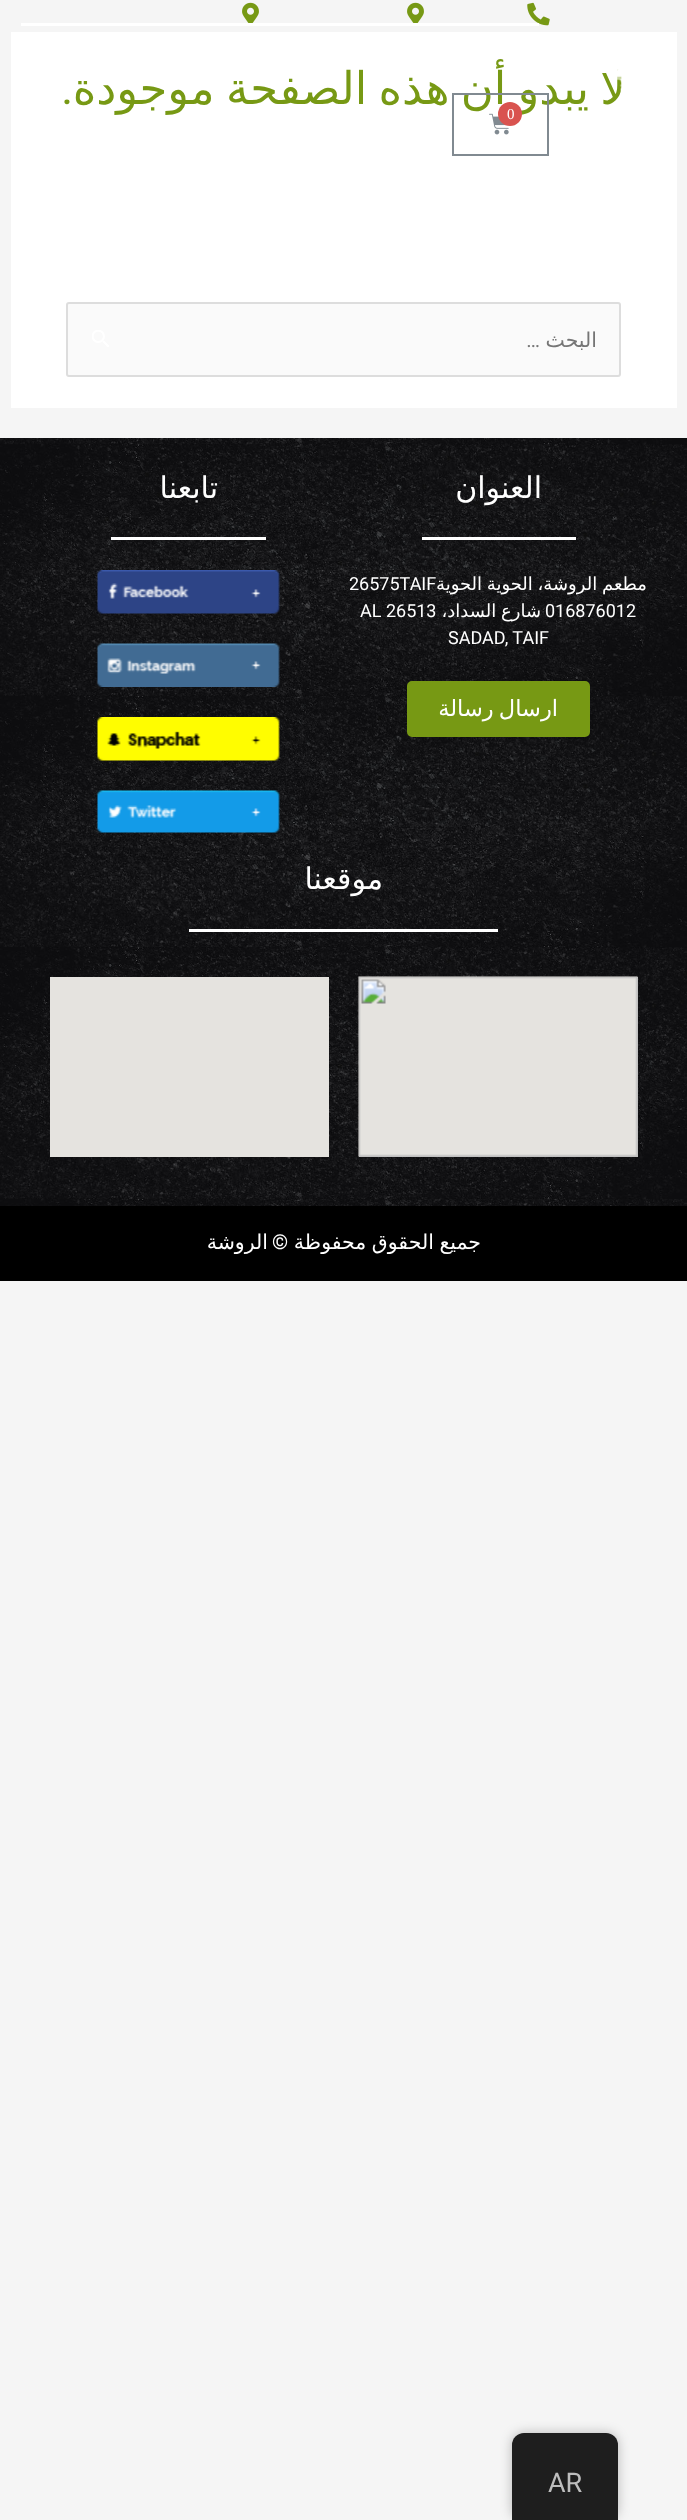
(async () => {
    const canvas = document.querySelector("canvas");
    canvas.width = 687;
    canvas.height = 2520;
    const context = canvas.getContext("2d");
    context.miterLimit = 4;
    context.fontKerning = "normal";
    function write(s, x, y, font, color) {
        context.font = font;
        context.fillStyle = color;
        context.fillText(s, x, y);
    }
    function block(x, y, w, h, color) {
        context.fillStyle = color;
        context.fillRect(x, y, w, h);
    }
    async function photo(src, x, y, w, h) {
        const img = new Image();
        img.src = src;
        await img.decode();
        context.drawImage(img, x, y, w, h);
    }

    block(0, 0, 687, 2520, "rgb(245, 245, 245)");
    block(11, 32, 666, 376, "rgb(255, 255, 255)");
    context.wordSpacing = "-3px";
    context.direction = "rtl";
    write("لا يبدو أن هذه الصفحة موجودة", 626, 104, "45px DejaVu Sans", "rgb(119, 153, 20)");
    context.wordSpacing = "0px";
    write(".", 73, 104, "45px Roboto", "rgb(119, 153, 20)");
    context.fillStyle = "rgb(250, 250, 250)";
    context.beginPath();
    context.roundRect(67, 303, 553, 73, 2);
    context.fill();
    context.strokeStyle = "rgb(221, 221, 221)";
    context.lineWidth = 2;
    context.stroke();
    write("البحث", 597, 347, "20.5px DejaVu Sans", "rgb(117, 117, 117)");
    write("…", 540, 347, "20.5px Roboto", "rgb(117, 117, 117)");
    await photo("media/1.png", 92, 330, 17, 17);
    await photo("media/2.png", 617, 69, 5, 23);
    await photo("media/3.png", 527, 2, 23, 24);
    block(21, 23, 518, 3, "rgb(255, 255, 255)");
    await photo("media/4.png", 407, 2, 17, 21);
    await photo("media/4.png", 242, 2, 17, 21);
    context.strokeStyle = "rgb(129, 138, 145)";
    context.strokeRect(453, 94, 95, 61);
    await photo("media/5.png", 489, 113, 20, 22);
    context.fillStyle = "rgb(217, 83, 79)";
    context.beginPath();
    context.arc(510, 114, 12, 0, Math.PI * 2);
    context.fill();
    context.direction = "ltr";
    write("0", 507, 119, "15px Liberation Serif", "rgb(255, 255, 255)");
    await photo("media/6.png", 0, 438, 687, 768);
    context.direction = "rtl";
    write("العنوان", 542, 498, "30px DejaVu Sans", "rgb(255, 255, 255)");
    block(422, 537, 154, 3, "rgb(255, 255, 255)");
    context.wordSpacing = "-1px";
    write("مطعم الروشة، الحوية الحوية", 647, 590, "18px DejaVu Sans", "rgb(255, 255, 255)");
    context.wordSpacing = "0px";
    context.direction = "ltr";
    write("26575TAIF", 349, 590, "18px Roboto", "rgb(255, 255, 255)");
    write("016876012", 545, 617, "18px Roboto", "rgb(255, 255, 255)");
    context.wordSpacing = "-1px";
    context.direction = "rtl";
    write("شارع السداد،", 541, 617, "18px DejaVu Sans", "rgb(255, 255, 255)");
    context.wordSpacing = "0px";
    context.direction = "ltr";
    write("AL 26513", 360, 617, "18px Roboto", "rgb(255, 255, 255)");
    write("SADAD, TAIF", 448, 644, "18px Roboto", "rgb(255, 255, 255)");
    context.fillStyle = "rgb(119, 153, 20)";
    context.beginPath();
    context.roundRect(408, 682, 181, 54, 4);
    context.fill();
    context.strokeStyle = "rgb(119, 153, 20)";
    context.stroke();
    context.wordSpacing = "-2px";
    context.direction = "rtl";
    write("ارسال رسالة", 558, 716, "22.5px DejaVu Sans", "rgb(255, 255, 255)");
    context.wordSpacing = "0px";
    write("تابعنا", 218, 498, "30px DejaVu Sans", "rgb(255, 255, 255)");
    block(111, 537, 155, 3, "rgb(255, 255, 255)");
    await photo("media/7.png", 97, 570, 183, 44);
    await photo("media/8.png", 97, 643, 183, 44);
    await photo("media/9.png", 97, 717, 183, 44);
    await photo("media/10.png", 97, 790, 183, 43);
    write("موقعنا", 383, 889, "30px DejaVu Sans", "rgb(255, 255, 255)");
    block(189, 929, 309, 3, "rgb(255, 255, 255)");
    await photo("media/11.png", 358, 976, 280, 181);
    block(50, 977, 279, 180, "rgb(229, 227, 223)");
    block(0, 1206, 687, 75, "rgb(0, 0, 0)");
    context.wordSpacing = "-1px";
    write("جميع الحقوق محفوظة", 481, 1249, "20.5px DejaVu Sans", "rgb(255, 255, 255)");
    context.wordSpacing = "0px";
    write("©", 288, 1249, "20.5px Roboto", "rgb(255, 255, 255)");
    write("الروشة", 268, 1249, "20.5px DejaVu Sans", "rgb(255, 255, 255)");
    context.fillStyle = "rgba(0, 0, 0, 0.25)";
    context.filter = "blur(6px)";
    context.beginPath();
    context.roundRect(512, 2433, 106, 87, 12);
    context.fill();
    context.filter = "none";
    context.fillStyle = "rgb(30, 30, 30)";
    context.beginPath();
    context.roundRect(512, 2433, 106, 87, [12, 12, 0, 0]);
    context.fill();
    context.direction = "ltr";
    write("AR", 548, 2492, "27px Roboto", "rgb(189, 189, 189)");
})();
